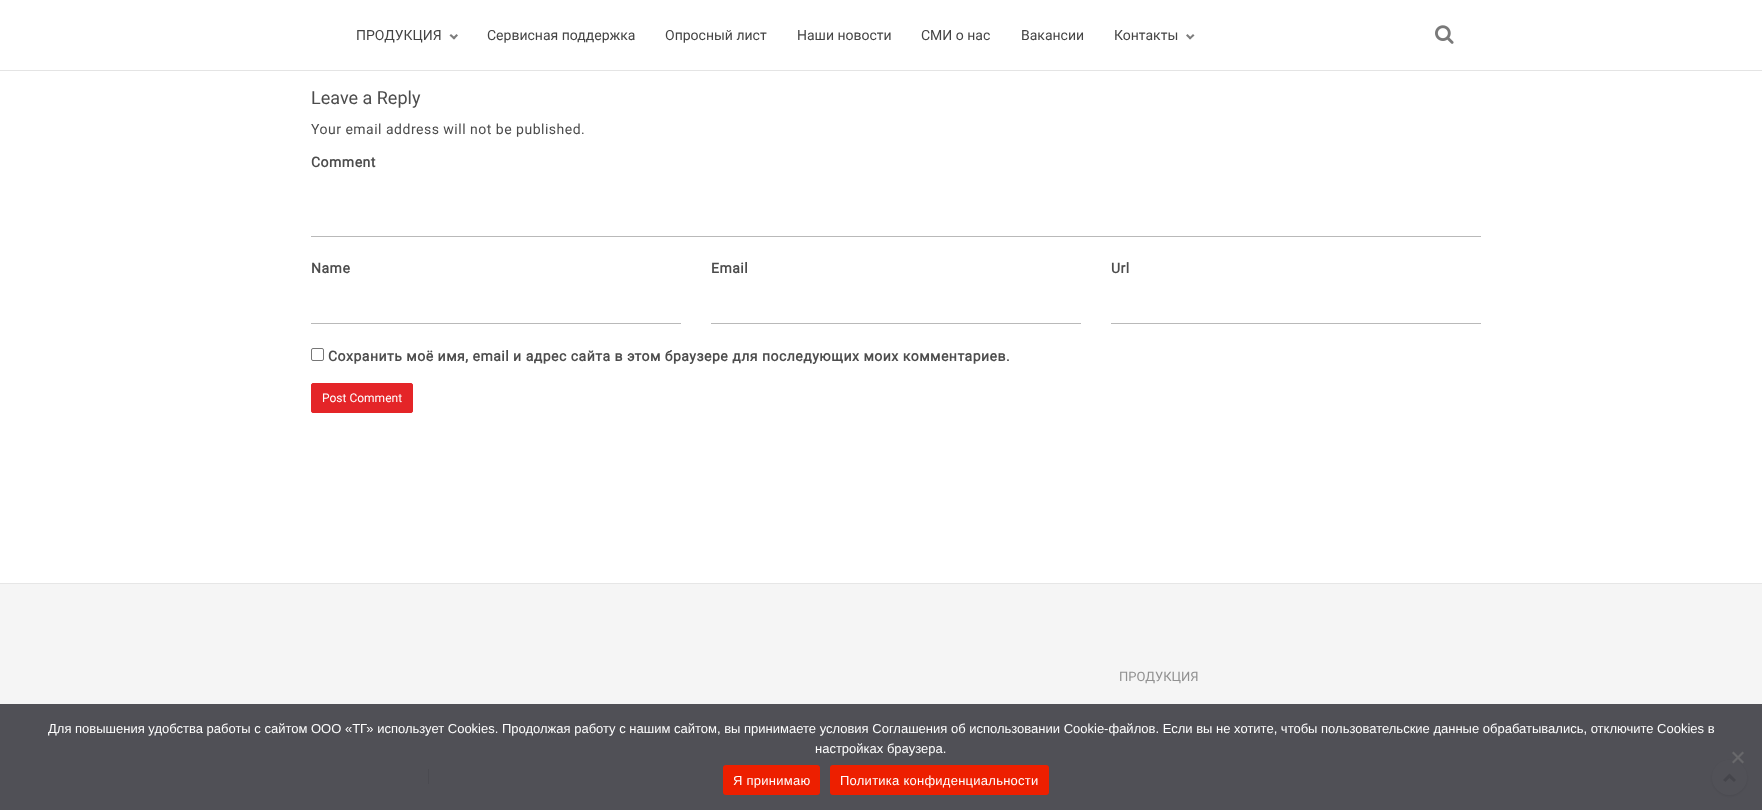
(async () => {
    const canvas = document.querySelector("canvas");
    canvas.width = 1762;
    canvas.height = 810;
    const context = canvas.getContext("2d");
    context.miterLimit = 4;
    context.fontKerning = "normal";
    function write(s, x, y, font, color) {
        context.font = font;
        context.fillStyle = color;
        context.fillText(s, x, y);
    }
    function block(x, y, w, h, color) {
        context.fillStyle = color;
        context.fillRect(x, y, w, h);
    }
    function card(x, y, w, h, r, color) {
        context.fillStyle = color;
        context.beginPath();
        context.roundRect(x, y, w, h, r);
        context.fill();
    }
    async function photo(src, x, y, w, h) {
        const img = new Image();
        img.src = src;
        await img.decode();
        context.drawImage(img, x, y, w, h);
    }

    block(0, 0, 1762, 810, "rgb(255, 255, 255)");
    block(0, 70, 1762, 1, "rgb(228, 228, 228)");
    write("ПРОДУКЦИЯ", 356, 40, "14px Roboto", "rgb(68, 68, 68)");
    context.fillStyle = "rgb(125, 125, 125)";
    context.beginPath();
    context.moveTo(458, 35.5);
    context.lineTo(454, 39.5);
    context.lineTo(452.5, 38);
    context.lineTo(456.5, 34);
    context.closePath();
    context.fill();
    context.beginPath();
    context.moveTo(455.5, 38);
    context.lineTo(454, 39.5);
    context.lineTo(449.5, 35.5);
    context.lineTo(451, 34);
    context.closePath();
    context.fill();
    write("Сервисная поддержка", 487, 40, "14px Roboto", "rgb(68, 68, 68)");
    write("Опросный лист", 665, 40, "14px Roboto", "rgb(68, 68, 68)");
    write("Наши новости", 797, 40, "14px Roboto", "rgb(68, 68, 68)");
    write("СМИ о нас", 921, 40, "14px Roboto", "rgb(68, 68, 68)");
    write("Вакансии", 1021, 40, "14px Roboto", "rgb(68, 68, 68)");
    write("Контакты", 1114, 40, "14px Roboto", "rgb(68, 68, 68)");
    context.fillStyle = "rgb(125, 125, 125)";
    context.beginPath();
    context.moveTo(1194.5, 35.5);
    context.lineTo(1190, 39.5);
    context.lineTo(1189, 38);
    context.lineTo(1193, 34);
    context.closePath();
    context.fill();
    context.beginPath();
    context.moveTo(1191.5, 38);
    context.lineTo(1190, 39.5);
    context.lineTo(1186, 35.5);
    context.lineTo(1187.5, 34);
    context.closePath();
    context.fill();
    await photo("media/1.png", 1435, 25, 19, 19);
    write("Leave a Reply", 311, 104, "18px Roboto", "rgb(76, 76, 76)");
    context.letterSpacing = "0.5px";
    write("Your email address will not be published.", 311, 134, "14px Roboto", "rgb(76, 76, 76)");
    write("Comment", 311, 167, "bold 14px Roboto", "rgb(76, 76, 76)");
    block(311, 236, 1170, 1, "rgb(185, 185, 185)");
    write("Name", 311, 273, "bold 14px Roboto", "rgb(76, 76, 76)");
    block(311, 323, 370, 1, "rgb(185, 185, 185)");
    write("Email", 711, 273, "bold 14px Roboto", "rgb(76, 76, 76)");
    block(711, 323, 370, 1, "rgb(185, 185, 185)");
    write("Url", 1111, 273, "bold 14px Roboto", "rgb(76, 76, 76)");
    block(1111, 323, 370, 1, "rgb(185, 185, 185)");
    context.beginPath();
    context.roundRect(311.5, 348.5, 12, 12, 1.5);
    context.strokeStyle = "rgb(118, 118, 118)";
    context.stroke();
    write("Сохранить моё имя, email и адрес сайта в этом браузере для последующих моих комментариев.", 328, 361, "bold 14px Roboto", "rgb(76, 76, 76)");
    context.fillStyle = "rgb(228, 37, 40)";
    context.beginPath();
    context.roundRect(311.5, 383.5, 101, 29, 1.5);
    context.fill();
    context.strokeStyle = "rgb(228, 37, 40)";
    context.stroke();
    context.letterSpacing = "0px";
    write("Post Comment", 322, 402, "12px Roboto", "rgb(255, 255, 255)");
    block(0, 584, 1762, 226, "rgb(245, 245, 245)");
    block(0, 583, 1762, 1, "rgb(230, 230, 230)");
    write("ПРОДУКЦИЯ", 1119, 681, "13px Roboto", "rgb(145, 145, 145)");
    block(428, 769, 1, 15, "rgb(204, 204, 204)");
    context.fillStyle = "rgba(0, 0, 0, 0.17)";
    context.filter = "blur(1px)";
    context.beginPath();
    context.roundRect(1712, 761, 35, 35, 17.5);
    context.fill();
    context.filter = "none";
    context.fillStyle = "rgb(255, 255, 255)";
    context.beginPath();
    context.arc(1729.5, 777.5, 17.5, 0, Math.PI * 2);
    context.fill();
    context.fillStyle = "rgb(174, 174, 174)";
    context.beginPath();
    context.moveTo(1723, 780);
    context.lineTo(1729.5, 773.5);
    context.lineTo(1729.5, 778);
    context.lineTo(1725.5, 782);
    context.closePath();
    context.fill();
    context.fillStyle = "rgba(93, 93, 93, 0.5)";
    context.beginPath();
    context.moveTo(1729.5, 773.5);
    context.lineTo(1736, 780);
    context.lineTo(1734, 782);
    context.lineTo(1729.5, 778);
    context.closePath();
    context.fill();
    block(0, 704, 1762, 106, "rgba(50, 50, 58, 0.85)");
    write("Для повышения удобства работы с сайтом ООО «ТГ» использует Cookies. Продолжая работу с нашим сайтом, вы принимаете условия Соглашения об использовании Cookie-файлов. Если вы не хотите, чтобы пользовательские данные обрабатывались, отключите Cookies в", 48, 733, "13px Liberation Sans", "rgb(255, 255, 255)");
    write("настройках браузера.", 815, 753, "13px Liberation Sans", "rgb(255, 255, 255)");
    context.fillStyle = "rgb(104, 104, 107)";
    context.beginPath();
    context.moveTo(1742.5, 751.5);
    context.lineTo(1744, 753);
    context.lineTo(1733.5, 763.5);
    context.lineTo(1732, 762);
    context.closePath();
    context.fill();
    context.beginPath();
    context.moveTo(1732, 753);
    context.lineTo(1733.5, 751.5);
    context.lineTo(1744, 762);
    context.lineTo(1742.5, 763.5);
    context.closePath();
    context.fill();
    card(723, 765, 97, 30, 3, "rgb(237, 31, 0)");
    context.letterSpacing = "0.25px";
    write("Я принимаю", 733, 785, "13px Liberation Sans", "rgb(255, 255, 255)");
    card(830, 765, 219, 30, 3, "rgb(237, 31, 0)");
    write("Политика конфиденциальности", 840, 785, "13px Liberation Sans", "rgb(255, 255, 255)");
})();
